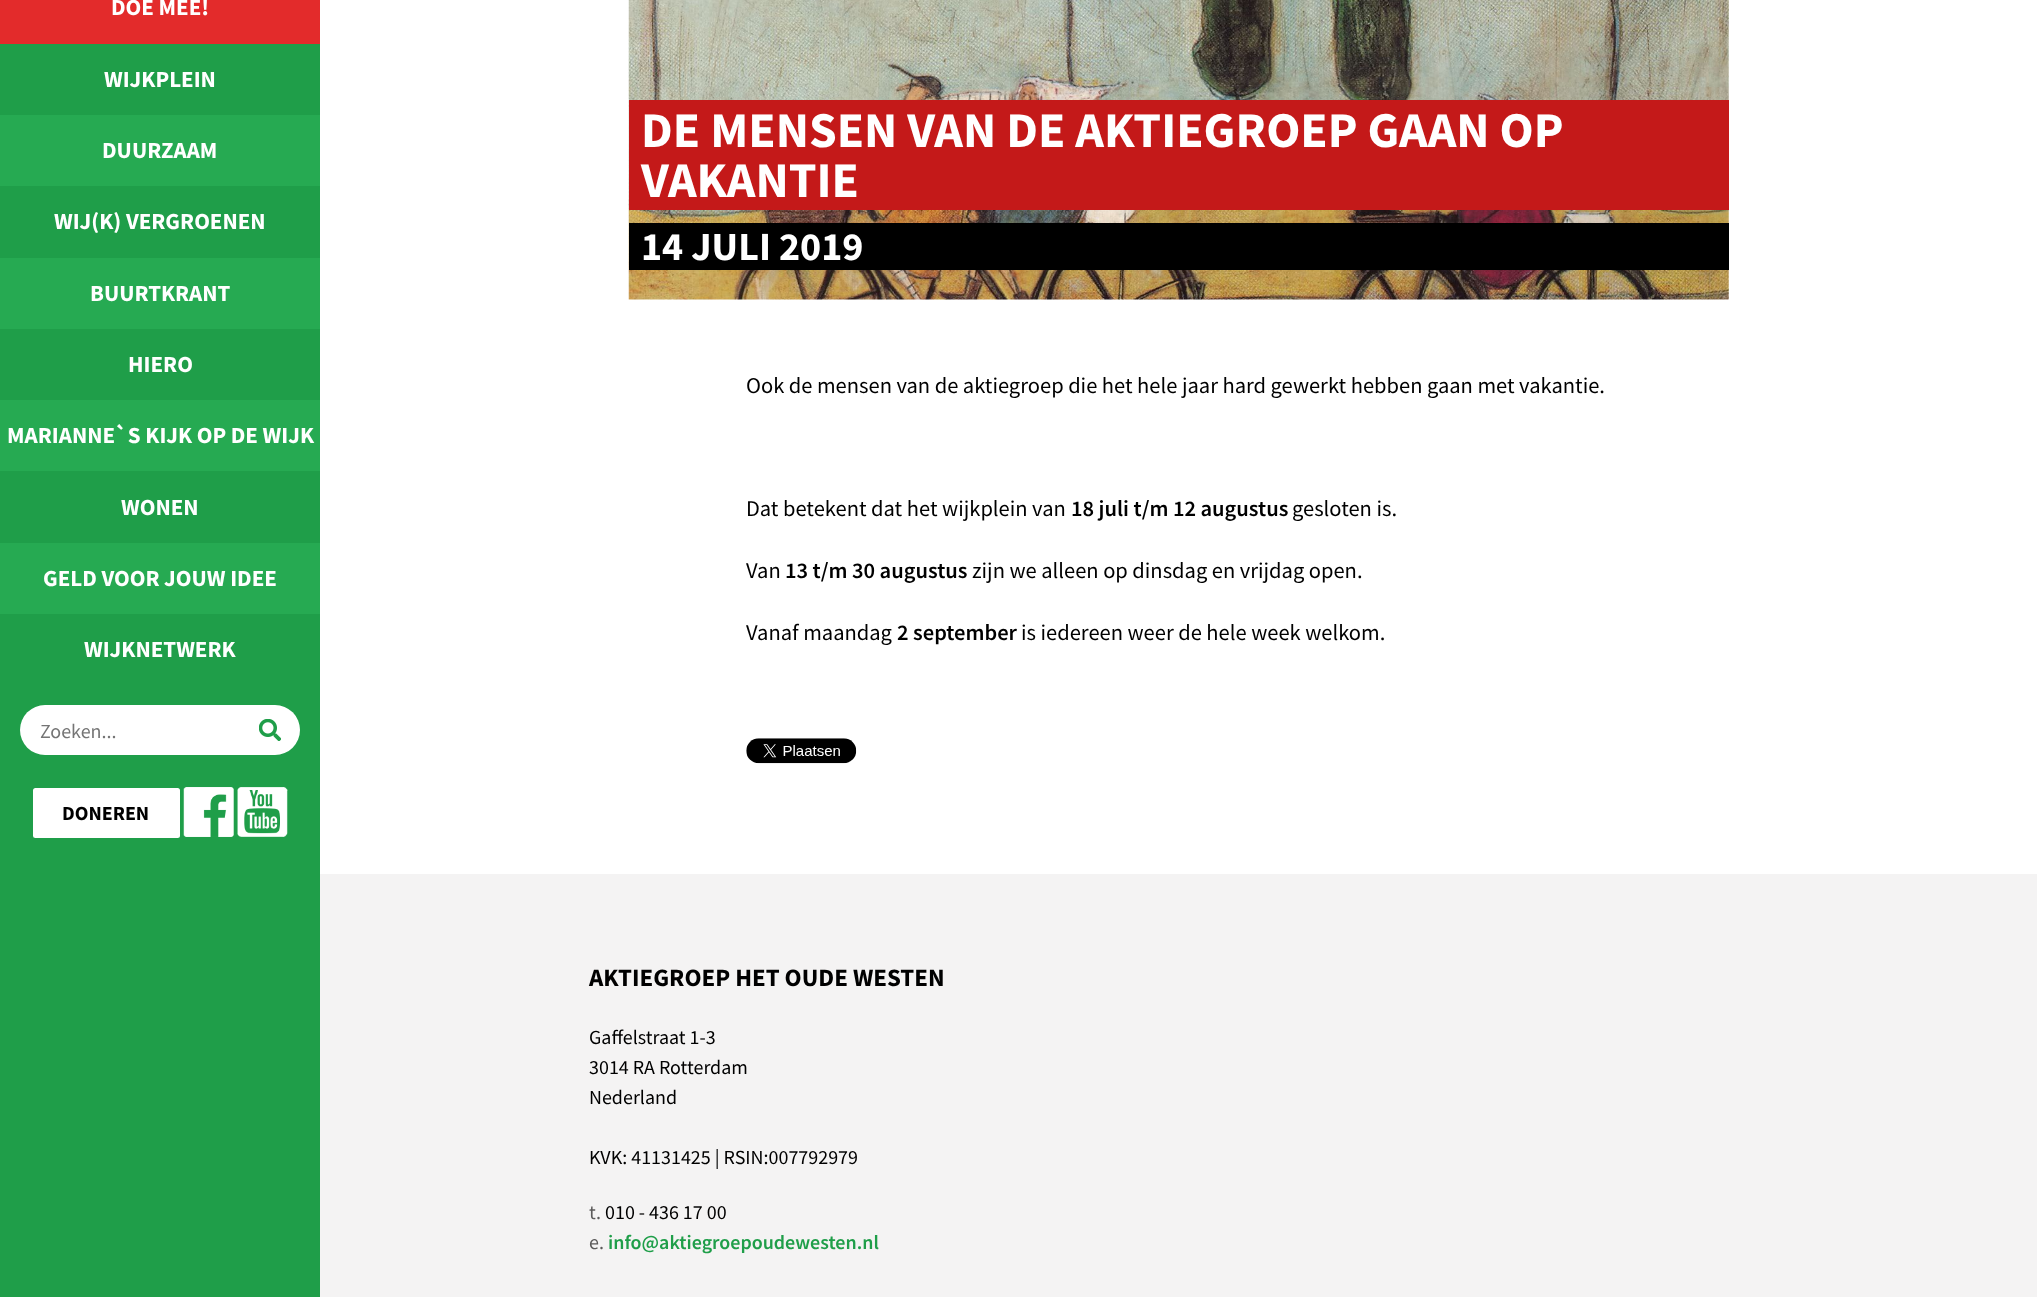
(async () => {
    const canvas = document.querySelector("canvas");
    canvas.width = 2037;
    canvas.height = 1297;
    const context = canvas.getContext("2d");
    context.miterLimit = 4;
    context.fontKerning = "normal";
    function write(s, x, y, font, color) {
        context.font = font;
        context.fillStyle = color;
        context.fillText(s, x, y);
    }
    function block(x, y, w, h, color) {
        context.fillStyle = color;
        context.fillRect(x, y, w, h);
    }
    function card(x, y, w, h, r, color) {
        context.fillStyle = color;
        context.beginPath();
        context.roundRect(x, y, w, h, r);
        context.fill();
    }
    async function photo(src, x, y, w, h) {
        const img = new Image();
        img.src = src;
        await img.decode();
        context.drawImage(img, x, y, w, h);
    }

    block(0, 0, 2037, 1297, "rgb(255, 255, 255)");
    block(0, 44, 320, 1253, "rgb(31, 158, 73)");
    block(0, 0, 320, 44, "rgb(227, 43, 43)");
    write("DOE MEE!", 111, 15, "bold 23px Source Sans Pro", "rgb(255, 255, 255)");
    write("WIJKPLEIN", 104, 87, "bold 23px Source Sans Pro", "rgb(255, 255, 255)");
    block(0, 115, 320, 71, "rgb(38, 170, 82)");
    write("DUURZAAM", 102, 158, "bold 23px Source Sans Pro", "rgb(255, 255, 255)");
    write("WIJ(K) VERGROENEN", 54, 229, "bold 23px Source Sans Pro", "rgb(255, 255, 255)");
    block(0, 258, 320, 71, "rgb(38, 170, 82)");
    write("BUURTKRANT", 90, 301, "bold 23px Source Sans Pro", "rgb(255, 255, 255)");
    write("HIERO", 128, 372, "bold 23px Source Sans Pro", "rgb(255, 255, 255)");
    block(0, 400, 320, 71, "rgb(38, 170, 82)");
    write("MARIANNE`S KIJK OP DE WIJK", 7, 443, "bold 23px Source Sans Pro", "rgb(255, 255, 255)");
    write("WONEN", 121, 515, "bold 23px Source Sans Pro", "rgb(255, 255, 255)");
    block(0, 543, 320, 71, "rgb(38, 170, 82)");
    write("GELD VOOR JOUW IDEE", 43, 586, "bold 23px Source Sans Pro", "rgb(255, 255, 255)");
    write("WIJKNETWERK", 84, 657, "bold 23px Source Sans Pro", "rgb(255, 255, 255)");
    card(20, 705, 280, 50, 25, "rgb(255, 255, 255)");
    write("Zoeken...", 40, 738, "20px Source Sans Pro", "rgb(117, 117, 117)");
    await photo("media/1.png", 259, 719, 22, 22);
    card(33, 788, 147, 50, 2.5, "rgb(255, 255, 255)");
    write("DONEREN", 62, 820, "bold 20px Source Sans Pro", "rgb(0, 0, 0)");
    await photo("media/2.png", 183, 787, 51, 50);
    await photo("media/3.png", 237, 787, 51, 50);
    await photo("media/4.png", 628, 0, 1101, 300);
    block(629, 100, 1100, 110, "rgb(196, 25, 25)");
    write("DE MENSEN VAN DE AKTIEGROEP GAAN OP", 641, 147, "bold 50px Source Sans Pro", "rgb(255, 255, 255)");
    write("VAKANTIE", 641, 197, "bold 50px Source Sans Pro", "rgb(255, 255, 255)");
    block(629, 223, 1100, 47, "rgb(0, 0, 0)");
    write("14 JULI 2019", 641, 260, "bold 40px Source Sans Pro", "rgb(255, 255, 255)");
    write("Ook de mensen van de aktiegroep die het hele jaar hard gewerkt hebben gaan met vakantie.", 746, 393, "22.5px Source Sans Pro", "rgb(0, 0, 0)");
    write("Dat betekent dat het wijkplein van", 746, 516, "22.5px Source Sans Pro", "rgb(0, 0, 0)");
    write("18 juli t/m 12 augustus", 1071, 516, "600 22.5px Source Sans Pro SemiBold", "rgb(0, 0, 0)");
    write("gesloten is.", 1292, 516, "22.5px Source Sans Pro", "rgb(0, 0, 0)");
    write("Van", 746, 578, "22.5px Source Sans Pro", "rgb(0, 0, 0)");
    write("13 t/m 30 augustus", 785, 578, "600 22.5px Source Sans Pro SemiBold", "rgb(0, 0, 0)");
    write("zijn we alleen op dinsdag en vrijdag open.", 972, 578, "22.5px Source Sans Pro", "rgb(0, 0, 0)");
    write("Vanaf maandag", 746, 640, "22.5px Source Sans Pro", "rgb(0, 0, 0)");
    write("2 september", 897, 640, "600 22.5px Source Sans Pro SemiBold", "rgb(0, 0, 0)");
    write("is iedereen weer de hele week welkom.", 1021, 640, "22.5px Source Sans Pro", "rgb(0, 0, 0)");
    await photo("media/5.png", 746, 738, 111, 26);
    block(320, 874, 1717, 423, "rgb(244, 243, 243)");
    write("AKTIEGROEP HET OUDE WESTEN", 589, 986, "bold 25px Source Sans Pro", "rgb(0, 0, 0)");
    write("Gaffelstraat 1-3", 589, 1044, "20px Source Sans Pro", "rgb(0, 0, 0)");
    write("3014 RA Rotterdam", 589, 1074, "20px Source Sans Pro", "rgb(0, 0, 0)");
    write("Nederland", 589, 1104, "20px Source Sans Pro", "rgb(0, 0, 0)");
    write("KVK: 41131425 | RSIN:007792979", 589, 1164, "20px Source Sans Pro", "rgb(0, 0, 0)");
    write("t.", 589, 1219, "20px Source Sans Pro", "rgb(91, 90, 90)");
    write("010 - 436 17 00", 605, 1219, "20px Source Sans Pro", "rgb(0, 0, 0)");
    write("e.", 589, 1249, "20px Source Sans Pro", "rgb(91, 90, 90)");
    write("info@aktiegroepoudewesten.nl", 608, 1249, "600 20px Source Sans Pro SemiBold", "rgb(31, 158, 73)");
})();
